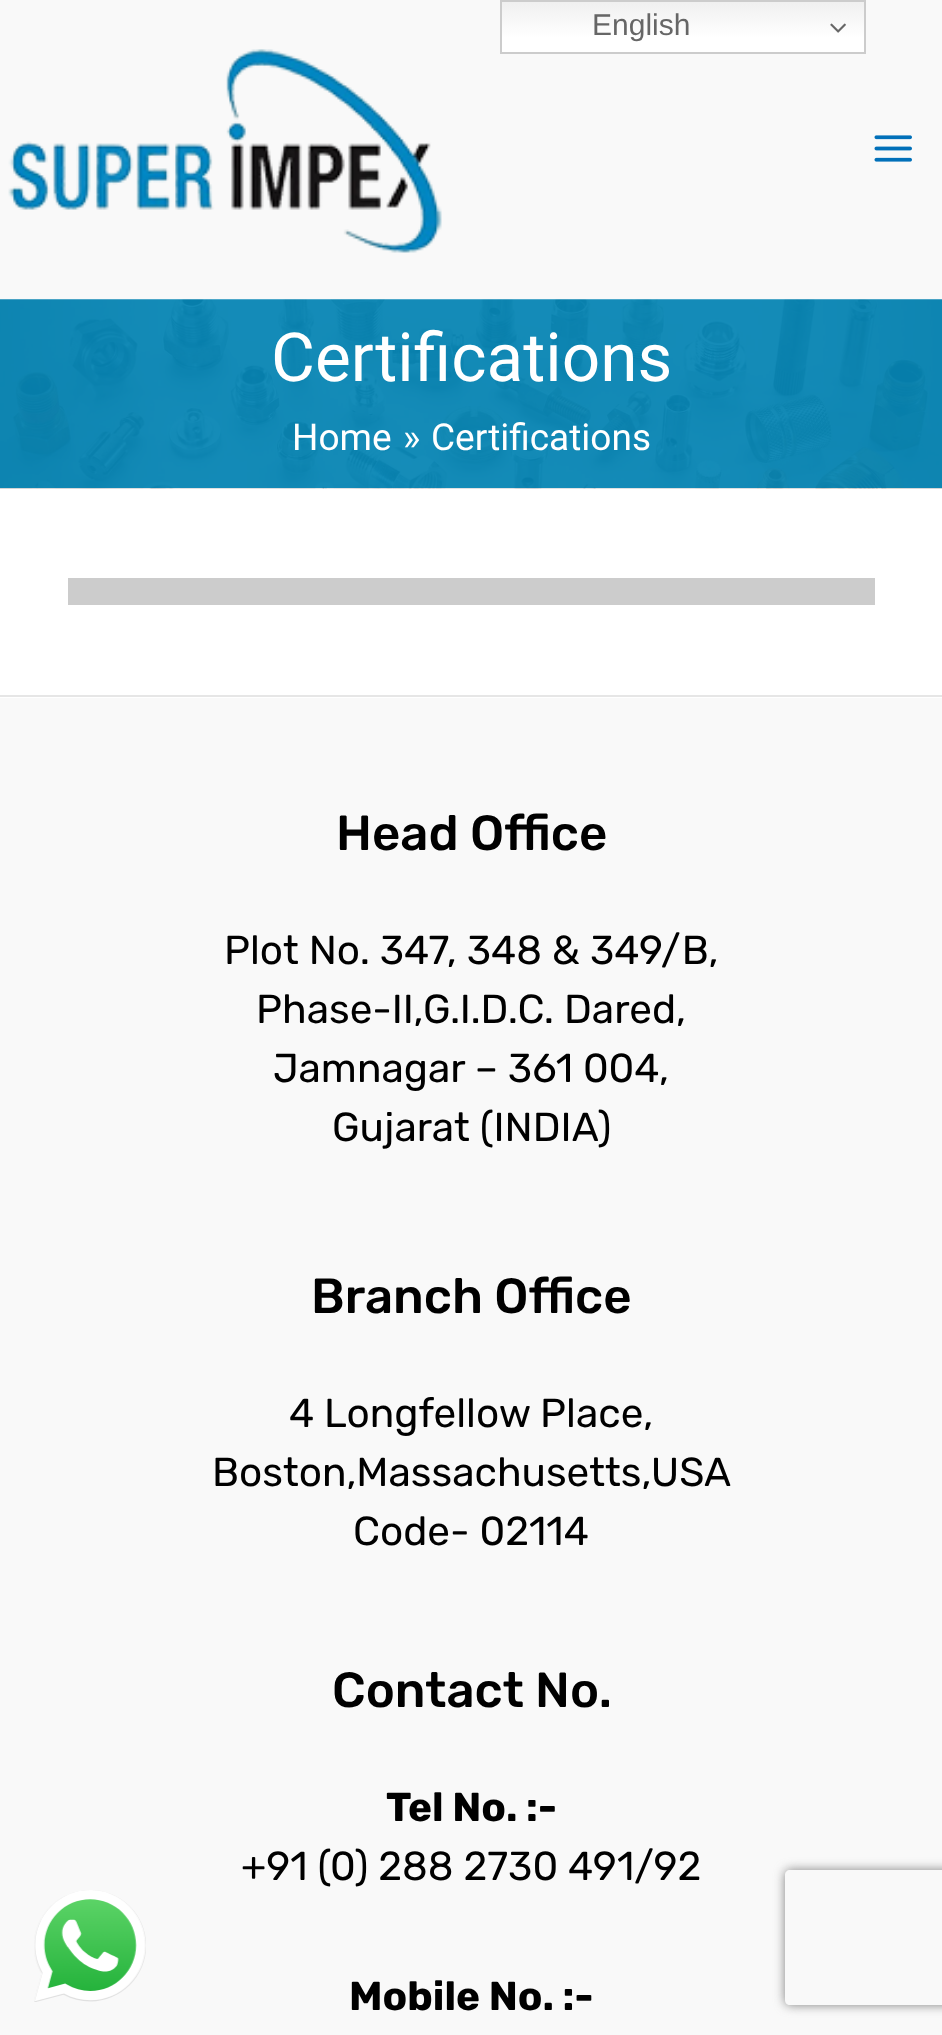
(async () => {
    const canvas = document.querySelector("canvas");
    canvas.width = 942;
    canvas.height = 2035;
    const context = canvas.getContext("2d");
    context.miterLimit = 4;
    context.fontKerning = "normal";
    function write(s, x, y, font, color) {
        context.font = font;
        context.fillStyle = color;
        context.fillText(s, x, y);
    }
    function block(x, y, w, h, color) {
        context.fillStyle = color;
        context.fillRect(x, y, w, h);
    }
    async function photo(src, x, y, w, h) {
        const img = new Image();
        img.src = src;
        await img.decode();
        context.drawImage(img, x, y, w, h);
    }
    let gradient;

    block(0, 0, 942, 2035, "rgb(255, 255, 255)");
    block(0, 0, 942, 299, "rgb(249, 249, 249)");
    gradient = context.createLinearGradient(683, 0, 683, 54);
    gradient.addColorStop(0, "rgb(239, 239, 239)");
    gradient.addColorStop(0.7, "rgb(255, 255, 255)");
    context.fillStyle = gradient;
    context.fillRect(502, 2, 362, 50);
    context.strokeStyle = "rgb(204, 204, 204)";
    context.lineWidth = 2;
    context.strokeRect(501, 1, 364, 52);
    write("English", 592, 35, "30px Liberation Sans", "rgb(102, 102, 102)");
    await photo("media/1.png", 830, 23, 16, 10);
    block(0, 698, 942, 1337, "rgb(249, 249, 249)");
    await photo("media/2.png", 34, 1890, 112, 112);
    await photo("media/3.png", 8, 49, 434, 204);
    await photo("media/4.png", 874, 135, 38, 27);
    await photo("media/5.png", 0, 299, 942, 190);
    write("Certifications", 271, 381, "67.5px Roboto", "rgb(255, 255, 255)");
    write("Home", 292, 450, "37px Roboto", "rgb(255, 255, 255)");
    write("»", 403, 450, "37px Roboto", "rgb(255, 255, 255)");
    write("Certifications", 431, 450, "37px Roboto", "rgb(255, 255, 255)");
    block(68, 578, 807, 27, "rgb(204, 204, 204)");
    block(0, 695, 942, 2, "rgb(230, 230, 230)");
    write("Head Office", 336, 850, "500 49.25px Rubik", "rgb(0, 0, 0)");
    write("Plot No. 347, 348 & 349/B,", 224, 964, "40.5px Rubik", "rgb(0, 0, 0)");
    write("Phase-II,G.I.D.C. Dared,", 256, 1023, "40.5px Rubik", "rgb(0, 0, 0)");
    write("Jamnagar – 361 004,", 273, 1082, "40.5px Rubik", "rgb(0, 0, 0)");
    write("Gujarat (INDIA)", 332, 1141, "40.5px Rubik", "rgb(0, 0, 0)");
    write("Branch Office", 311, 1313, "500 49.25px Rubik", "rgb(0, 0, 0)");
    write("4 Longfellow Place,", 289, 1427, "40.5px Rubik", "rgb(0, 0, 0)");
    write("Boston,Massachusetts,USA", 212, 1486, "40.5px Rubik", "rgb(0, 0, 0)");
    write("Code- 02114", 353, 1545, "40.5px Rubik", "rgb(0, 0, 0)");
    write("Contact No.", 332, 1707, "500 49.25px Rubik", "rgb(0, 0, 0)");
    write("Tel No. :-", 386, 1821, "bold 40.5px Rubik", "rgb(0, 0, 0)");
    write("+91 (0) 288 2730 491/92", 241, 1880, "40.5px Rubik", "rgb(0, 0, 0)");
    write("Mobile No. :-", 349, 2010, "bold 40.5px Rubik", "rgb(0, 0, 0)");
    context.save();
    context.beginPath();
    context.moveTo(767, 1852);
    context.lineTo(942, 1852);
    context.lineTo(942, 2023);
    context.lineTo(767, 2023);
    context.closePath();
    context.moveTo(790, 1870);
    context.lineTo(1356, 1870);
    context.bezierCurveTo(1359, 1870, 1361, 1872, 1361, 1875);
    context.lineTo(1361, 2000);
    context.bezierCurveTo(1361, 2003, 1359, 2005, 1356, 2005);
    context.lineTo(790, 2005);
    context.bezierCurveTo(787, 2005, 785, 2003, 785, 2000);
    context.lineTo(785, 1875);
    context.bezierCurveTo(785, 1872, 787, 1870, 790, 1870);
    context.closePath();
    context.clip("evenodd");
    context.fillStyle = "rgb(128, 128, 128)";
    context.filter = "blur(5.5px)";
    context.beginPath();
    context.roundRect(785, 1870, 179, 135, 5);
    context.fill();
    context.filter = "none";
    context.restore();
})();
